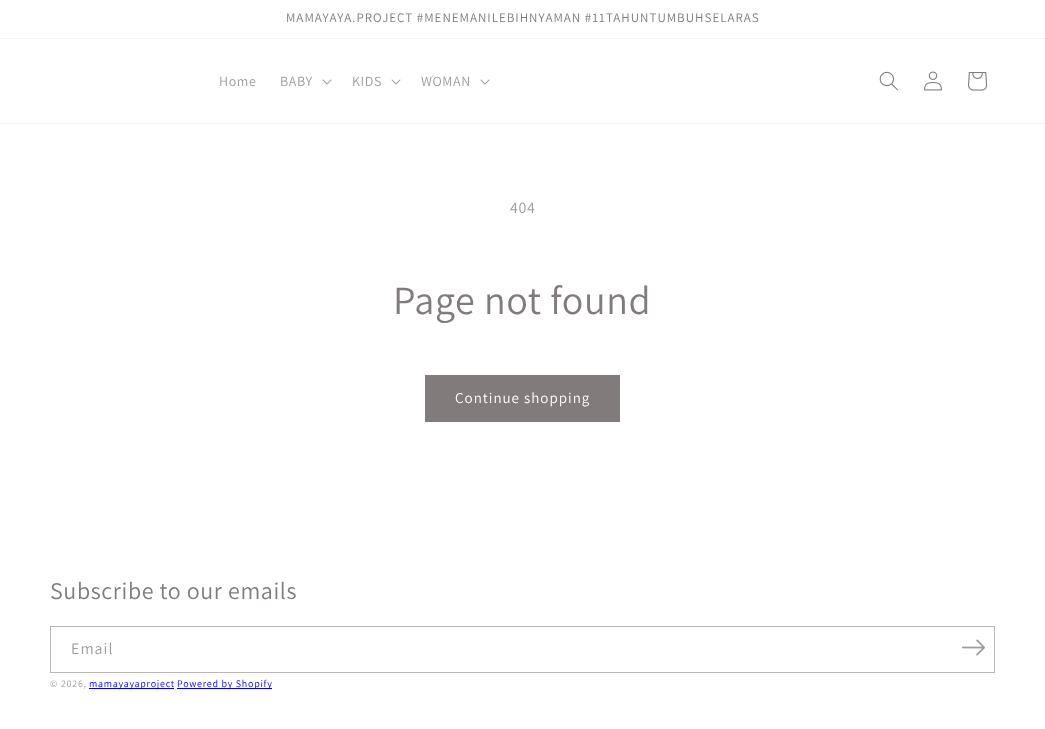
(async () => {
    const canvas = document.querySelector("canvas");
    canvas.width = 1045;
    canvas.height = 729;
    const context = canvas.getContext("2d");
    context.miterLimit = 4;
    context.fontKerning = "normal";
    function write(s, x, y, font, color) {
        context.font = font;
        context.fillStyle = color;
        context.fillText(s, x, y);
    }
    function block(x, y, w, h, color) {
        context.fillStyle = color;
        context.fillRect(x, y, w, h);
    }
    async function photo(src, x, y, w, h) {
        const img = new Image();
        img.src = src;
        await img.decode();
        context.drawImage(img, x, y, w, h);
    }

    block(0, 0, 1045, 729, "rgb(255, 255, 255)");
    block(0, 38, 1045, 1, "rgb(245, 244, 244)");
    context.letterSpacing = "1px";
    write("MAMAYAYA.PROJECT #MENEMANILEBIHNYAMAN #11TAHUNTUMBUHSELARAS", 286, 22, "13px Assistant", "rgb(129, 123, 123)");
    block(0, 123, 1045, 1, "rgb(245, 244, 244)");
    context.letterSpacing = "0.6px";
    write("Home", 219, 86, "14px Assistant", "rgb(161, 156, 156)");
    write("BABY", 280, 86, "14px Assistant", "rgb(161, 156, 156)");
    await photo("media/1.png", 322, 79, 10, 6);
    write("KIDS", 352, 86, "14px Assistant", "rgb(161, 156, 156)");
    await photo("media/1.png", 391, 79, 10, 6);
    write("WOMAN", 421, 86, "14px Assistant", "rgb(161, 156, 156)");
    await photo("media/1.png", 480, 79, 10, 6);
    await photo("media/2.png", 879, 71, 19, 20);
    await photo("media/3.png", 924, 71, 18, 20);
    await photo("media/4.png", 968, 72, 20, 19);
    write("404", 510, 213, "16px Assistant", "rgb(161, 156, 156)");
    write("Page not found", 393, 314, "40px Assistant", "rgb(129, 123, 123)");
    block(425, 375, 195, 47, "rgb(129, 123, 123)");
    context.letterSpacing = "1px";
    write("Continue shopping", 455, 403, "15px Assistant", "rgb(255, 255, 255)");
    context.letterSpacing = "0.6px";
    write("Subscribe to our emails", 50, 599, "24px Assistant", "rgb(129, 123, 123)");
    await photo("media/5.png", 962, 639, 23, 17);
    context.strokeStyle = "rgb(186, 182, 182)";
    context.strokeRect(50.5, 626.5, 944, 46);
    context.letterSpacing = "1px";
    write("Email", 71, 654, "16px Assistant", "rgb(161, 156, 156)");
    context.letterSpacing = "0.75px";
    write("© 2026,", 50, 687, "10px Assistant", "rgb(161, 156, 156)");
    block(89, 688, 85, 1, "rgb(0, 0, 238)");
    write("mamayayaproject", 89, 687, "10px Assistant", "rgb(0, 0, 238)");
    block(177, 688, 95, 1, "rgb(0, 0, 238)");
    write("Powered by Shopify", 177, 687, "10px Assistant", "rgb(0, 0, 238)");
})();
